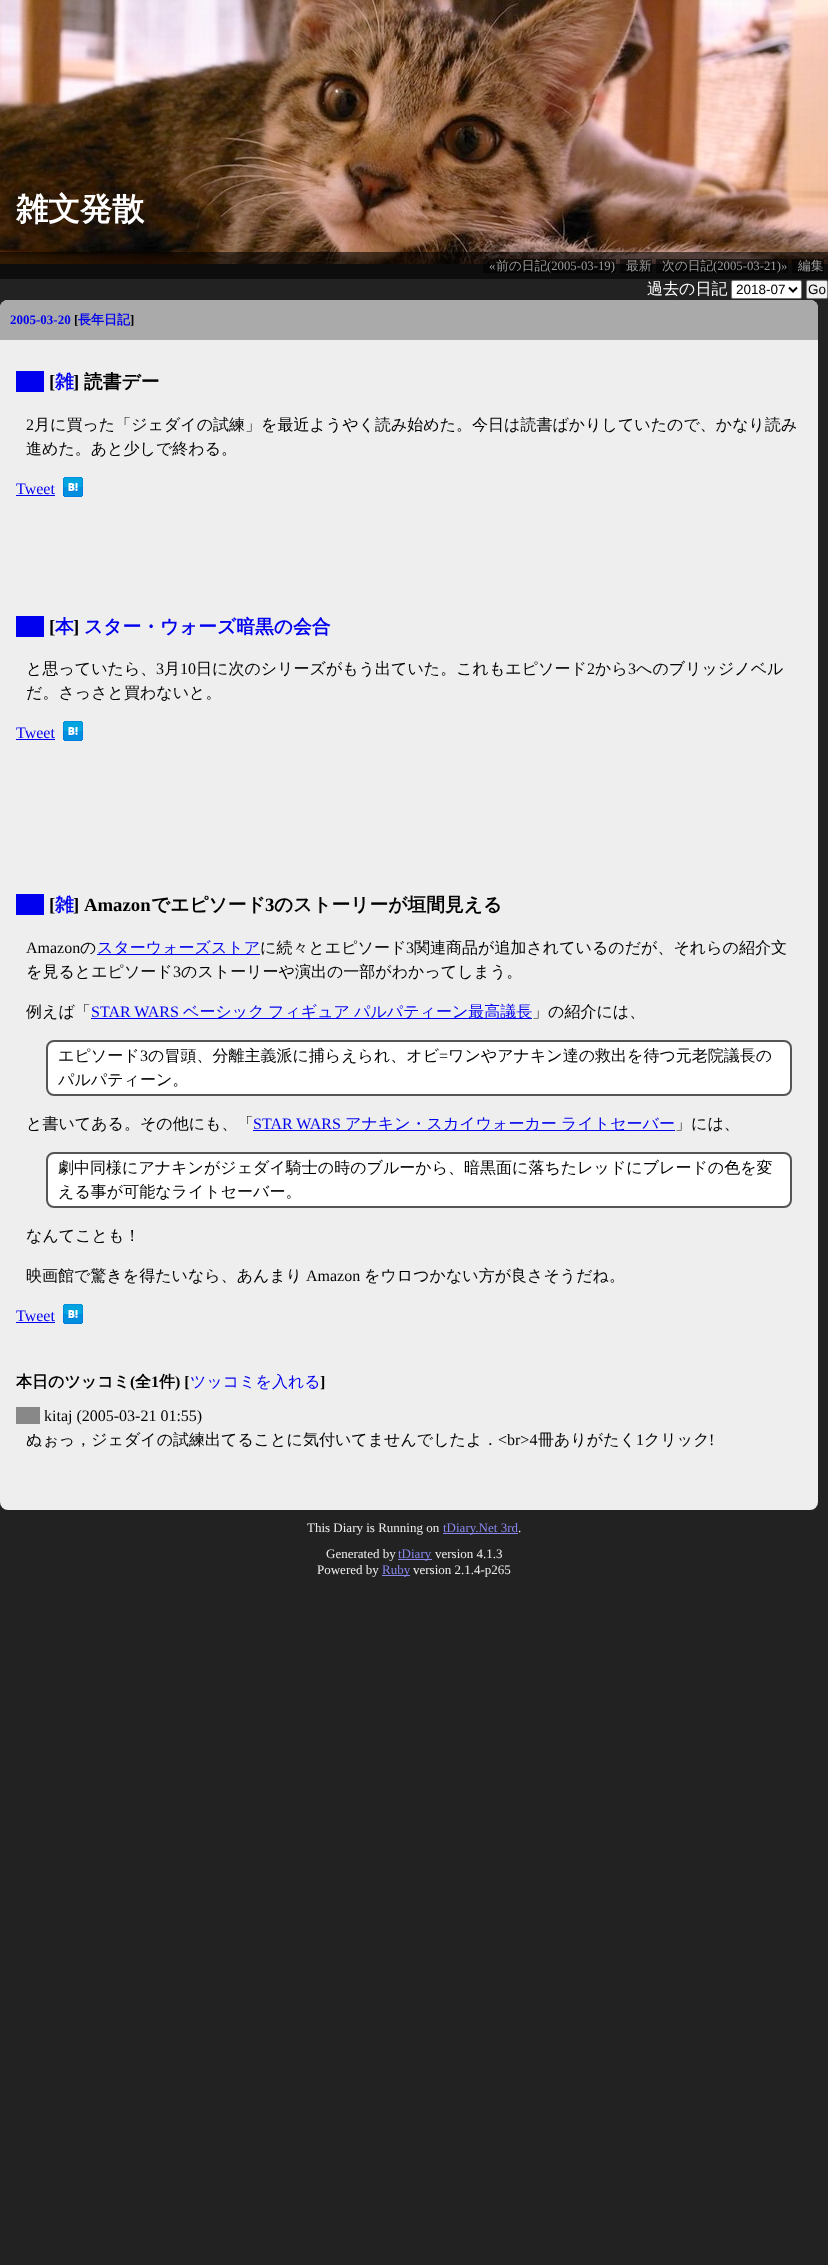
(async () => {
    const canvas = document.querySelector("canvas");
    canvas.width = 828;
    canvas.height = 2265;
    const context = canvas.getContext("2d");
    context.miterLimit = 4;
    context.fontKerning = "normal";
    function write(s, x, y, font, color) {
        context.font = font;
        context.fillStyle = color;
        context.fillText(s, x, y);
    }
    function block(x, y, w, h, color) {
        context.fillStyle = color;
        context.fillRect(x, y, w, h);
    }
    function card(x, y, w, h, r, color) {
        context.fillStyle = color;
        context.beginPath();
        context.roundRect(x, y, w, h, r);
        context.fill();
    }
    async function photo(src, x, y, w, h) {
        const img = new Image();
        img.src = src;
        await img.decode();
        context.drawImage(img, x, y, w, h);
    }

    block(0, 0, 828, 2265, "rgb(34, 34, 34)");
    await photo("media/1.png", 0, 0, 828, 264);
    write("雑文発散", 16, 220, "bold 32px WenQuanYi Zen Hei", "rgb(255, 255, 255)");
    block(0, 252, 828, 27, "rgba(0, 0, 0, 0.6)");
    block(483, 259, 133, 14, "rgba(0, 0, 0, 0.6)");
    write("«", 489, 270, "12.75px Liberation Serif", "rgb(167, 167, 167)");
    write("前の日記", 496, 270, "500 12.75px WenQuanYi Zen Hei", "rgb(156, 156, 155)");
    write("(2005-03-19)", 547, 270, "12.75px Liberation Serif", "rgb(156, 156, 155)");
    block(620, 259, 32, 14, "rgba(0, 0, 0, 0.6)");
    write("最新", 626, 270, "500 12.75px WenQuanYi Zen Hei", "rgb(156, 156, 155)");
    block(656, 259, 132, 14, "rgba(0, 0, 0, 0.6)");
    write("次の日記", 662, 270, "500 12.75px WenQuanYi Zen Hei", "rgb(156, 156, 155)");
    write("(2005-03-21)»", 713, 270, "12.75px Liberation Serif", "rgb(156, 156, 155)");
    block(792, 259, 32, 14, "rgba(0, 0, 0, 0.6)");
    write("編集", 798, 270, "500 12.75px WenQuanYi Zen Hei", "rgb(156, 156, 155)");
    write("過去の日記", 647, 294, "500 16px WenQuanYi Zen Hei", "rgb(255, 255, 255)");
    context.beginPath();
    context.roundRect(731.5, 280.5, 70, 18, 1.5);
    context.fill();
    context.strokeStyle = "rgb(118, 118, 118)";
    context.stroke();
    context.beginPath();
    context.moveTo(789, 287.5);
    context.lineTo(793, 291.5);
    context.lineTo(797, 287.5);
    context.strokeStyle = "rgb(0, 0, 0)";
    context.lineWidth = 2;
    context.stroke();
    write("2018-07", 736, 294, "13.5px Liberation Sans", "rgb(0, 0, 0)");
    context.fillStyle = "rgb(239, 239, 239)";
    context.beginPath();
    context.roundRect(806.5, 280.5, 21, 18, 1.5);
    context.fill();
    context.strokeStyle = "rgb(118, 118, 118)";
    context.lineWidth = 1;
    context.stroke();
    write("Go", 808, 294, "13.5px Liberation Sans", "rgb(0, 0, 0)");
    card(0, 300, 818, 1210, 8, "rgb(238, 238, 238)");
    context.fillStyle = "rgb(170, 170, 170)";
    context.beginPath();
    context.roundRect(0, 300, 818, 40, [8, 8, 0, 0]);
    context.fill();
    write("2005-03-20", 10, 324, "bold 13px Liberation Serif", "rgb(0, 0, 238)");
    write("[", 74, 324, "bold 13px Liberation Serif", "rgb(0, 0, 0)");
    write("長年日記", 78, 324, "bold 13px WenQuanYi Zen Hei", "rgb(0, 0, 238)");
    write("]", 130, 324, "bold 13px Liberation Serif", "rgb(0, 0, 0)");
    block(16, 371, 28, 21, "rgb(0, 0, 238)");
    write("[", 49, 388, "bold 18.75px Liberation Serif", "rgb(0, 0, 0)");
    write("雑", 55, 388, "bold 18.75px WenQuanYi Zen Hei", "rgb(0, 0, 238)");
    write("]", 73, 388, "bold 18.75px Liberation Serif", "rgb(0, 0, 0)");
    write("読書デー", 84, 388, "bold 18.75px WenQuanYi Zen Hei", "rgb(0, 0, 0)");
    write("2", 26, 430, "16px Liberation Serif", "rgb(0, 0, 0)");
    write("月に買った「ジェダイの試練」を最近ようやく読み始めた。今日は読書ばかりしていたので、かなり読み", 34, 430, "500 16px WenQuanYi Zen Hei", "rgb(0, 0, 0)");
    write("進めた。あと少しで終わる。", 26, 454, "500 16px WenQuanYi Zen Hei", "rgb(0, 0, 0)");
    write("Tweet", 16, 494, "16px Liberation Serif", "rgb(0, 0, 238)");
    block(16, 495, 39, 1, "rgb(0, 0, 238)");
    await photo("media/2.png", 63, 477, 20, 20);
    block(16, 616, 28, 21, "rgb(0, 0, 238)");
    write("[", 49, 633, "bold 18.75px Liberation Serif", "rgb(0, 0, 0)");
    write("本", 55, 633, "bold 18.75px WenQuanYi Zen Hei", "rgb(0, 0, 238)");
    write("]", 73, 633, "bold 18.75px Liberation Serif", "rgb(0, 0, 0)");
    write("スター・ウォーズ暗黒の会合", 84, 633, "bold 18.75px WenQuanYi Zen Hei", "rgb(0, 0, 238)");
    write("と思っていたら、", 26, 674, "500 16px WenQuanYi Zen Hei", "rgb(0, 0, 0)");
    write("3", 156, 674, "16px Liberation Serif", "rgb(0, 0, 0)");
    write("月", 164, 674, "500 16px WenQuanYi Zen Hei", "rgb(0, 0, 0)");
    write("10", 180, 674, "16px Liberation Serif", "rgb(0, 0, 0)");
    write("日に次のシリーズがもう出ていた。これもエピソード", 196, 674, "500 16px WenQuanYi Zen Hei", "rgb(0, 0, 0)");
    write("2", 587, 674, "16px Liberation Serif", "rgb(0, 0, 0)");
    write("から", 595, 674, "500 16px WenQuanYi Zen Hei", "rgb(0, 0, 0)");
    write("3", 628, 674, "16px Liberation Serif", "rgb(0, 0, 0)");
    write("へのブリッジノベル", 636, 674, "500 16px WenQuanYi Zen Hei", "rgb(0, 0, 0)");
    write("だ。さっさと買わないと。", 26, 698, "500 16px WenQuanYi Zen Hei", "rgb(0, 0, 0)");
    write("Tweet", 16, 738, "16px Liberation Serif", "rgb(0, 0, 238)");
    block(16, 739, 39, 1, "rgb(0, 0, 238)");
    await photo("media/2.png", 63, 721, 20, 20);
    block(16, 894, 28, 21, "rgb(0, 0, 238)");
    write("[", 49, 911, "bold 18.75px Liberation Serif", "rgb(0, 0, 0)");
    write("雑", 55, 911, "bold 18.75px WenQuanYi Zen Hei", "rgb(0, 0, 238)");
    context.wordSpacing = "1px";
    write("] Amazon", 73, 911, "bold 18.75px Liberation Serif", "rgb(0, 0, 0)");
    context.wordSpacing = "0px";
    write("でエピソード", 151, 911, "bold 18.75px WenQuanYi Zen Hei", "rgb(0, 0, 0)");
    write("3", 265, 911, "bold 18.75px Liberation Serif", "rgb(0, 0, 0)");
    write("のストーリーが垣間見える", 274, 911, "bold 18.75px WenQuanYi Zen Hei", "rgb(0, 0, 0)");
    write("Amazon", 26, 953, "16px Liberation Serif", "rgb(0, 0, 0)");
    write("の", 80, 953, "500 16px WenQuanYi Zen Hei", "rgb(0, 0, 0)");
    block(97, 954, 163, 1, "rgb(0, 0, 238)");
    write("スターウォーズストア", 97, 953, "500 16px WenQuanYi Zen Hei", "rgb(0, 0, 238)");
    write("に続々とエピソード", 260, 953, "500 16px WenQuanYi Zen Hei", "rgb(0, 0, 0)");
    write("3", 406, 953, "16px Liberation Serif", "rgb(0, 0, 0)");
    write("関連商品が追加されているのだが、それらの紹介文", 414, 953, "500 16px WenQuanYi Zen Hei", "rgb(0, 0, 0)");
    write("を見るとエピソード", 26, 977, "500 16px WenQuanYi Zen Hei", "rgb(0, 0, 0)");
    write("3", 173, 977, "16px Liberation Serif", "rgb(0, 0, 0)");
    write("のストーリーや演出の一部がわかってしまう。", 181, 977, "500 16px WenQuanYi Zen Hei", "rgb(0, 0, 0)");
    write("例えば「", 26, 1017, "500 16px WenQuanYi Zen Hei", "rgb(0, 0, 0)");
    write("STAR WARS", 91, 1017, "16px Liberation Serif", "rgb(0, 0, 238)");
    block(91, 1018, 441, 1, "rgb(0, 0, 238)");
    write("ベーシック", 183, 1017, "500 16px WenQuanYi Zen Hei", "rgb(0, 0, 238)");
    write("フィギュア", 268, 1017, "500 16px WenQuanYi Zen Hei", "rgb(0, 0, 238)");
    write("パルパティーン最高議長", 354, 1017, "500 16px WenQuanYi Zen Hei", "rgb(0, 0, 238)");
    write("」の紹介には、", 532, 1017, "500 16px WenQuanYi Zen Hei", "rgb(0, 0, 0)");
    context.fillStyle = "rgb(255, 255, 255)";
    context.beginPath();
    context.roundRect(47, 1041, 744, 54, 7);
    context.fill();
    context.strokeStyle = "rgb(85, 85, 85)";
    context.lineWidth = 2;
    context.stroke();
    write("エピソード", 58, 1061, "500 16px WenQuanYi Zen Hei", "rgb(0, 0, 0)");
    write("3", 140, 1061, "16px Liberation Serif", "rgb(0, 0, 0)");
    write("の冒頭、分離主義派に捕らえられ、オビ", 148, 1061, "500 16px WenQuanYi Zen Hei", "rgb(0, 0, 0)");
    write("=", 439, 1061, "16px Liberation Serif", "rgb(0, 0, 0)");
    write("ワンやアナキン達の救出を待つ元老院議長の", 448, 1061, "500 16px WenQuanYi Zen Hei", "rgb(0, 0, 0)");
    write("パルパティーン。", 58, 1085, "500 16px WenQuanYi Zen Hei", "rgb(0, 0, 0)");
    write("と書いてある。その他にも、「", 26, 1129, "500 16px WenQuanYi Zen Hei", "rgb(0, 0, 0)");
    write("STAR WARS", 253, 1129, "16px Liberation Serif", "rgb(0, 0, 238)");
    block(253, 1130, 422, 1, "rgb(0, 0, 238)");
    write("アナキン・スカイウォーカー", 345, 1129, "500 16px WenQuanYi Zen Hei", "rgb(0, 0, 238)");
    write("ライトセーバー", 561, 1129, "500 16px WenQuanYi Zen Hei", "rgb(0, 0, 238)");
    write("」には、", 675, 1129, "500 16px WenQuanYi Zen Hei", "rgb(0, 0, 0)");
    context.fillStyle = "rgb(255, 255, 255)";
    context.beginPath();
    context.roundRect(47, 1153, 744, 54, 7);
    context.fill();
    context.stroke();
    write("劇中同様にアナキンがジェダイ騎士の時のブルーから、暗黒面に落ちたレッドにブレードの色を変", 58, 1173, "500 16px WenQuanYi Zen Hei", "rgb(0, 0, 0)");
    write("える事が可能なライトセーバー。", 58, 1197, "500 16px WenQuanYi Zen Hei", "rgb(0, 0, 0)");
    write("なんてことも！", 26, 1241, "500 16px WenQuanYi Zen Hei", "rgb(0, 0, 0)");
    write("映画館で驚きを得たいなら、あんまり", 26, 1281, "500 16px WenQuanYi Zen Hei", "rgb(0, 0, 0)");
    write("Amazon", 306, 1281, "16px Liberation Serif", "rgb(0, 0, 0)");
    write("をウロつかない方が良さそうだね。", 364, 1281, "500 16px WenQuanYi Zen Hei", "rgb(0, 0, 0)");
    write("Tweet", 16, 1321, "16px Liberation Serif", "rgb(0, 0, 238)");
    block(16, 1322, 39, 1, "rgb(0, 0, 238)");
    await photo("media/2.png", 63, 1304, 20, 20);
    write("本日のツッコミ", 16, 1387, "bold 16px WenQuanYi Zen Hei", "rgb(0, 0, 0)");
    write("(", 130, 1387, "bold 16px Liberation Serif", "rgb(0, 0, 0)");
    write("全", 135, 1387, "bold 16px WenQuanYi Zen Hei", "rgb(0, 0, 0)");
    write("1", 151, 1387, "bold 16px Liberation Serif", "rgb(0, 0, 0)");
    write("件", 159, 1387, "bold 16px WenQuanYi Zen Hei", "rgb(0, 0, 0)");
    write(") [", 175, 1387, "bold 16px Liberation Serif", "rgb(0, 0, 0)");
    write("ツッコミを入れる", 190, 1387, "500 16px WenQuanYi Zen Hei", "rgb(0, 0, 238)");
    write("]", 320, 1387, "bold 16px Liberation Serif", "rgb(0, 0, 0)");
    block(16, 1407, 24, 17, "rgb(136, 136, 136)");
    write("kitaj (2005-03-21 01:55)", 44, 1421, "16px Liberation Serif", "rgb(0, 0, 0)");
    write("ぬぉっ，ジェダイの試練出てることに気付いてませんでしたよ．", 26, 1445, "500 16px WenQuanYi Zen Hei", "rgb(0, 0, 0)");
    write("<br>4", 498, 1445, "16px Liberation Serif", "rgb(0, 0, 0)");
    write("冊ありがたく", 538, 1445, "500 16px WenQuanYi Zen Hei", "rgb(0, 0, 0)");
    write("1", 636, 1445, "16px Liberation Serif", "rgb(0, 0, 0)");
    write("クリック", 644, 1445, "500 16px WenQuanYi Zen Hei", "rgb(0, 0, 0)");
    write("!", 709, 1445, "16px Liberation Serif", "rgb(0, 0, 0)");
    write("This Diary is Running on", 307, 1532, "13px Liberation Serif", "rgb(238, 238, 238)");
    block(443, 1533, 75, 1, "rgb(136, 136, 238)");
    write("tDiary.Net 3rd", 443, 1532, "13px Liberation Serif", "rgb(136, 136, 238)");
    write(".", 518, 1532, "13px Liberation Serif", "rgb(238, 238, 238)");
    write("Generated by", 326, 1558, "13px Liberation Serif", "rgb(238, 238, 238)");
    block(398, 1559, 34, 1, "rgb(136, 136, 238)");
    write("tDiary", 398, 1558, "13px Liberation Serif", "rgb(136, 136, 238)");
    write("version 4.1.3", 435, 1558, "13px Liberation Serif", "rgb(238, 238, 238)");
    write("Powered by", 317, 1574, "13px Liberation Serif", "rgb(238, 238, 238)");
    block(382, 1575, 28, 1, "rgb(136, 136, 238)");
    write("Ruby", 382, 1574, "13px Liberation Serif", "rgb(136, 136, 238)");
    write("version 2.1.4-p265", 413, 1574, "13px Liberation Serif", "rgb(238, 238, 238)");
})();
